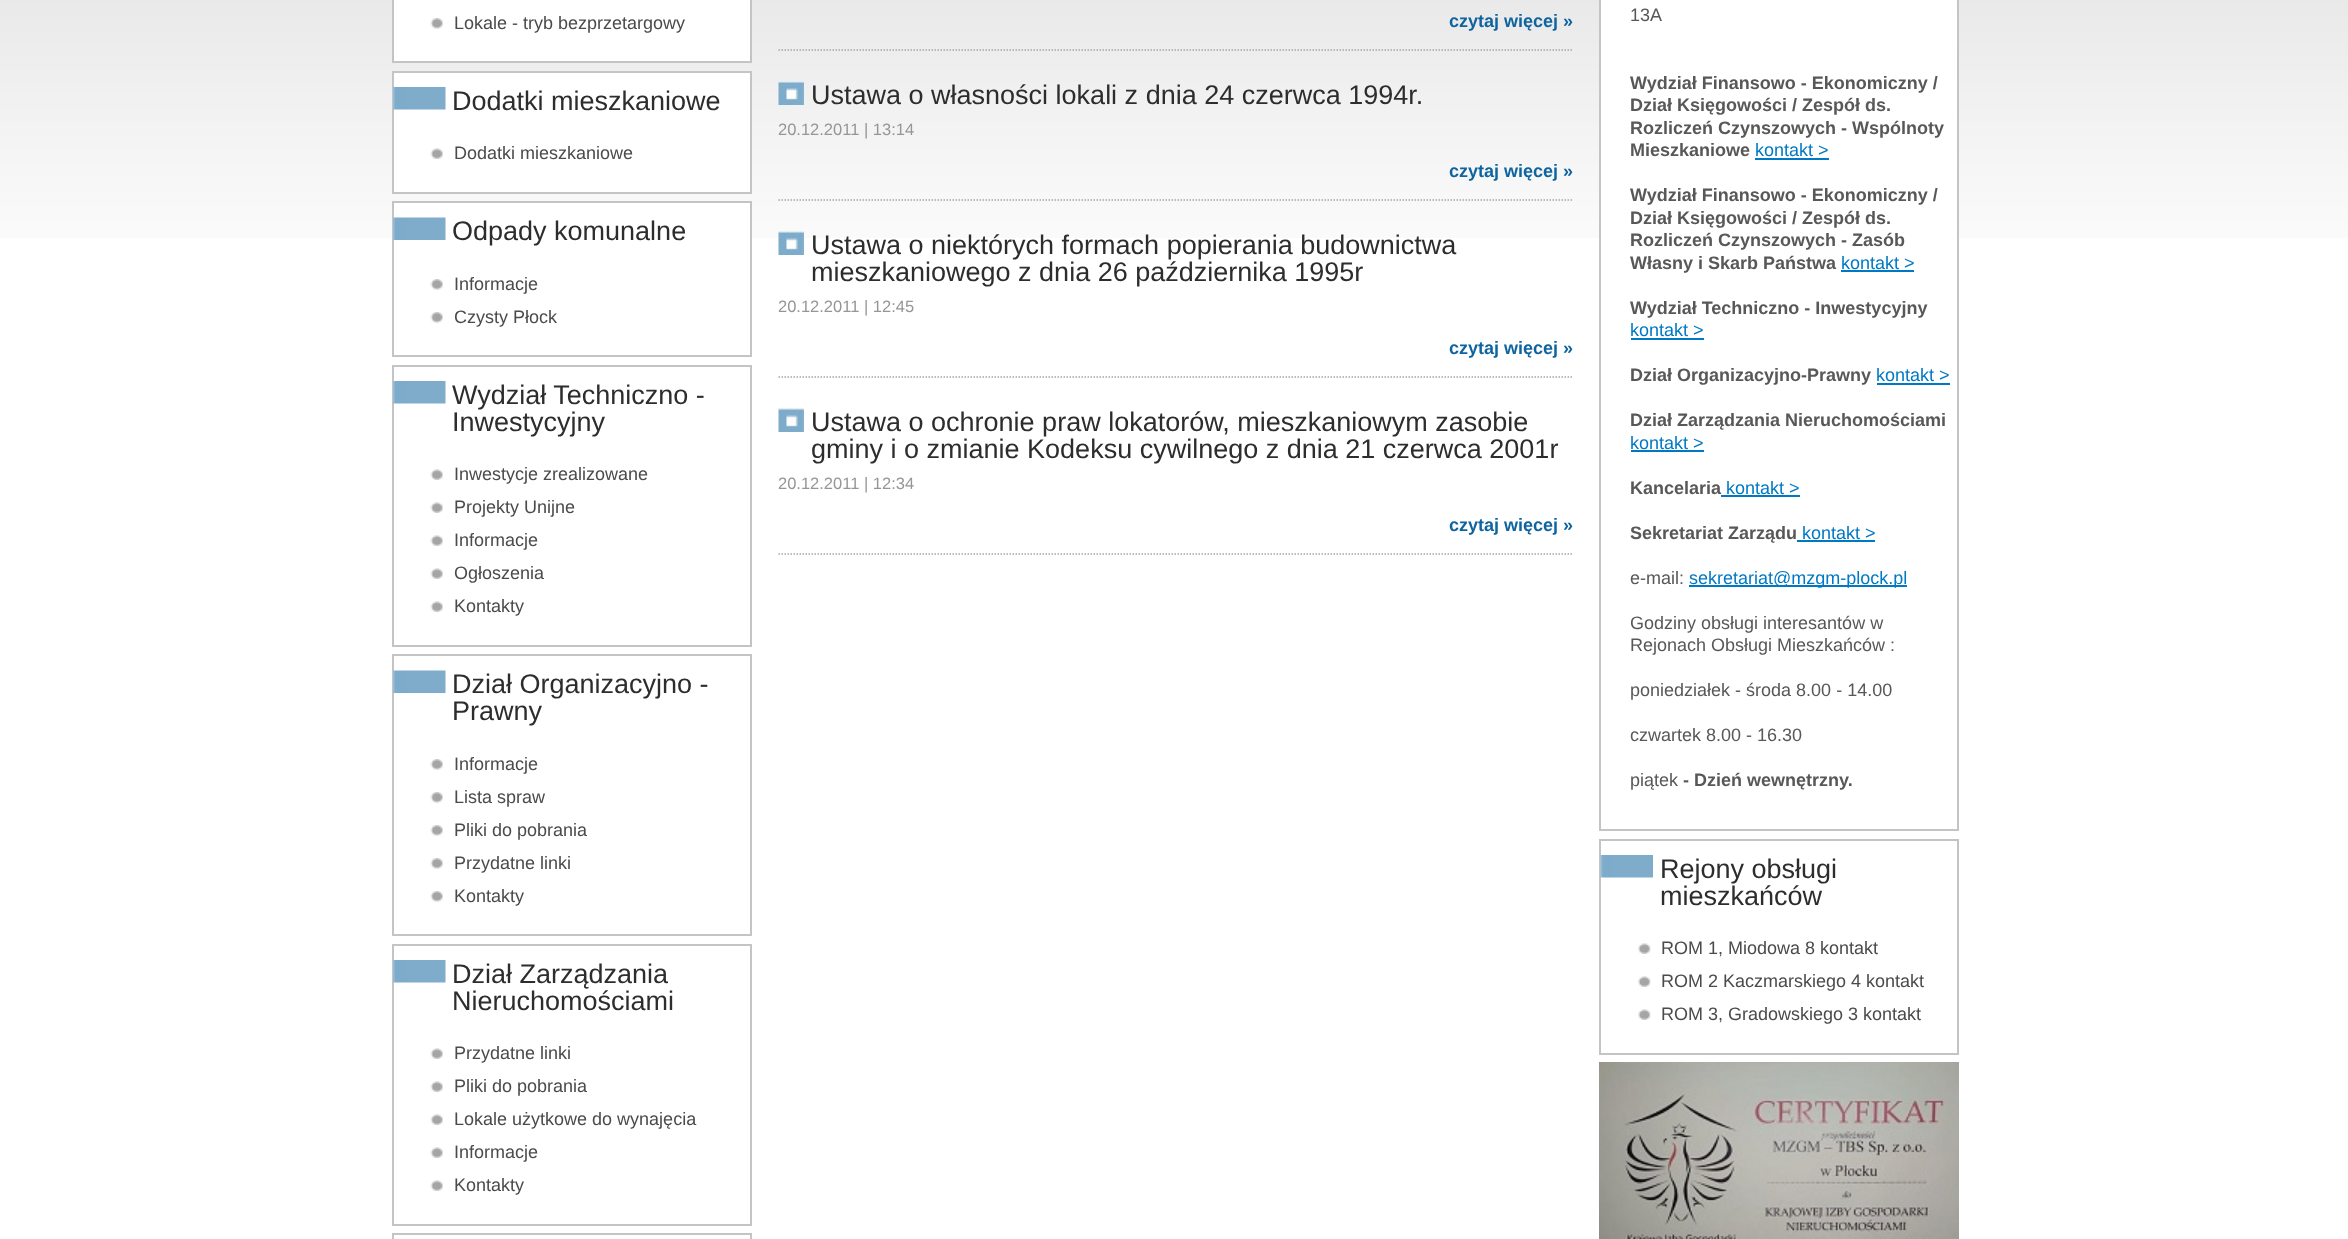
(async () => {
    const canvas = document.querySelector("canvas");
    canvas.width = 2348;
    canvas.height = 1239;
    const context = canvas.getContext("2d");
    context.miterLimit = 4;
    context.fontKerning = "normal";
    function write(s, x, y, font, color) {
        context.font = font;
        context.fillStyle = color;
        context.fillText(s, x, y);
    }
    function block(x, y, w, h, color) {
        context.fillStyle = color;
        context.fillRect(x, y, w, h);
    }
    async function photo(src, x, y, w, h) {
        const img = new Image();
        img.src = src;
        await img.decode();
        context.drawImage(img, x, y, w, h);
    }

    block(0, 0, 2348, 1239, "rgb(255, 255, 255)");
    await photo("media/1.png", 0, 0, 2348, 238);
    context.beginPath();
    context.rect(393, -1, 358, 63);
    context.fill();
    context.strokeStyle = "rgb(196, 196, 196)";
    context.lineWidth = 2;
    context.stroke();
    await photo("media/2.png", 430, 18, 13, 11);
    write("Lokale - tryb bezprzetargowy", 454, 29, "18px Liberation Sans", "rgb(75, 75, 75)");
    context.fillStyle = "rgb(255, 255, 255)";
    context.beginPath();
    context.rect(393, 72, 358, 121);
    context.fill();
    context.stroke();
    await photo("media/3.png", 393, 87, 53, 23);
    write("Dodatki mieszkaniowe", 452, 110, "27px Liberation Sans", "rgb(45, 45, 45)");
    await photo("media/4.png", 430, 148, 13, 11);
    write("Dodatki mieszkaniowe", 454, 159, "18px Liberation Sans", "rgb(75, 75, 75)");
    block(394, 203, 356, 35, "rgb(255, 255, 255)");
    context.strokeRect(393, 202, 358, 154);
    await photo("media/5.png", 393, 217, 53, 23);
    write("Odpady komunalne", 452, 240, "27px Liberation Sans", "rgb(45, 45, 45)");
    await photo("media/2.png", 430, 279, 13, 11);
    write("Informacje", 454, 290, "18px Liberation Sans", "rgb(75, 75, 75)");
    await photo("media/2.png", 430, 312, 13, 11);
    write("Czysty Płock", 454, 323, "18px Liberation Sans", "rgb(75, 75, 75)");
    context.strokeRect(393, 366, 358, 280);
    await photo("media/3.png", 393, 381, 53, 23);
    write("Wydział Techniczno -", 452, 404, "27px Liberation Sans", "rgb(45, 45, 45)");
    write("Inwestycyjny", 452, 431, "27px Liberation Sans", "rgb(45, 45, 45)");
    await photo("media/4.png", 430, 469, 13, 11);
    write("Inwestycje zrealizowane", 454, 480, "18px Liberation Sans", "rgb(75, 75, 75)");
    await photo("media/4.png", 430, 502, 13, 11);
    write("Projekty Unijne", 454, 513, "18px Liberation Sans", "rgb(75, 75, 75)");
    await photo("media/4.png", 430, 535, 13, 11);
    write("Informacje", 454, 546, "18px Liberation Sans", "rgb(75, 75, 75)");
    await photo("media/4.png", 430, 568, 13, 11);
    write("Ogłoszenia", 454, 579, "18px Liberation Sans", "rgb(75, 75, 75)");
    await photo("media/4.png", 430, 601, 13, 11);
    write("Kontakty", 454, 612, "18px Liberation Sans", "rgb(75, 75, 75)");
    context.strokeRect(393, 655, 358, 280);
    await photo("media/5.png", 393, 670, 53, 23);
    write("Dział Organizacyjno -", 452, 693, "27px Liberation Sans", "rgb(45, 45, 45)");
    write("Prawny", 452, 720, "27px Liberation Sans", "rgb(45, 45, 45)");
    await photo("media/2.png", 430, 759, 13, 11);
    write("Informacje", 454, 770, "18px Liberation Sans", "rgb(75, 75, 75)");
    await photo("media/2.png", 430, 792, 13, 11);
    write("Lista spraw", 454, 803, "18px Liberation Sans", "rgb(75, 75, 75)");
    await photo("media/2.png", 430, 825, 13, 11);
    write("Pliki do pobrania", 454, 836, "18px Liberation Sans", "rgb(75, 75, 75)");
    await photo("media/2.png", 430, 858, 13, 11);
    write("Przydatne linki", 454, 869, "18px Liberation Sans", "rgb(75, 75, 75)");
    await photo("media/2.png", 430, 891, 13, 11);
    write("Kontakty", 454, 902, "18px Liberation Sans", "rgb(75, 75, 75)");
    context.strokeRect(393, 945, 358, 280);
    await photo("media/3.png", 393, 960, 53, 23);
    write("Dział Zarządzania", 452, 983, "27px Liberation Sans", "rgb(45, 45, 45)");
    write("Nieruchomościami", 452, 1010, "27px Liberation Sans", "rgb(45, 45, 45)");
    await photo("media/4.png", 430, 1048, 13, 11);
    write("Przydatne linki", 454, 1059, "18px Liberation Sans", "rgb(75, 75, 75)");
    await photo("media/4.png", 430, 1081, 13, 11);
    write("Pliki do pobrania", 454, 1092, "18px Liberation Sans", "rgb(75, 75, 75)");
    await photo("media/4.png", 430, 1114, 13, 11);
    write("Lokale użytkowe do wynajęcia", 454, 1125, "18px Liberation Sans", "rgb(75, 75, 75)");
    await photo("media/4.png", 430, 1147, 13, 11);
    write("Informacje", 454, 1158, "18px Liberation Sans", "rgb(75, 75, 75)");
    await photo("media/4.png", 430, 1180, 13, 11);
    write("Kontakty", 454, 1191, "18px Liberation Sans", "rgb(75, 75, 75)");
    context.strokeRect(393, 1234, 358, 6);
    context.beginPath();
    context.moveTo(778.5, 50);
    context.lineTo(1573.5, 50);
    context.strokeStyle = "rgb(167, 167, 167)";
    context.lineWidth = 1.5;
    context.setLineDash([1.5, 1.5]);
    context.stroke();
    write("czytaj więcej »", 1449, 27, "bold 18px Liberation Sans", "rgb(14, 100, 159)");
    context.beginPath();
    context.moveTo(778.5, 200);
    context.lineTo(1573.5, 200);
    context.stroke();
    await photo("media/6.png", 778, 81, 26, 24);
    write("Ustawa o własności lokali z dnia 24 czerwca 1994r.", 811, 104, "27px Liberation Sans", "rgb(45, 45, 45)");
    write("20.12.2011 | 13:14", 778, 135, "16.5px Liberation Sans", "rgb(150, 150, 150)");
    write("czytaj więcej »", 1449, 177, "bold 18px Liberation Sans", "rgb(14, 100, 159)");
    context.beginPath();
    context.moveTo(778.5, 377);
    context.lineTo(1573.5, 377);
    context.stroke();
    await photo("media/7.png", 778, 231, 26, 24);
    write("Ustawa o niektórych formach popierania budownictwa", 811, 254, "27px Liberation Sans", "rgb(45, 45, 45)");
    write("mieszkaniowego z dnia 26 października 1995r", 811, 281, "27px Liberation Sans", "rgb(45, 45, 45)");
    write("20.12.2011 | 12:45", 778, 312, "16.5px Liberation Sans", "rgb(150, 150, 150)");
    write("czytaj więcej »", 1449, 354, "bold 18px Liberation Sans", "rgb(14, 100, 159)");
    context.beginPath();
    context.moveTo(778.5, 554);
    context.lineTo(1573.5, 554);
    context.stroke();
    await photo("media/8.png", 778, 408, 26, 24);
    write("Ustawa o ochronie praw lokatorów, mieszkaniowym zasobie", 811, 431, "27px Liberation Sans", "rgb(45, 45, 45)");
    write("gminy i o zmianie Kodeksu cywilnego z dnia 21 czerwca 2001r", 811, 458, "27px Liberation Sans", "rgb(45, 45, 45)");
    write("20.12.2011 | 12:34", 778, 489, "16.5px Liberation Sans", "rgb(150, 150, 150)");
    write("czytaj więcej »", 1449, 531, "bold 18px Liberation Sans", "rgb(14, 100, 159)");
    block(1601, 0, 356, 238, "rgb(255, 255, 255)");
    context.strokeStyle = "rgb(196, 196, 196)";
    context.lineWidth = 2;
    context.setLineDash([]);
    context.strokeRect(1600, -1, 358, 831);
    write("13A", 1630, 21, "18px Liberation Sans", "rgb(88, 88, 88)");
    write("Wydział Finansowo - Ekonomiczny /", 1630, 89, "bold 18px Liberation Sans", "rgb(88, 88, 88)");
    write("Dział Księgowości / Zespół ds.", 1630, 111, "bold 18px Liberation Sans", "rgb(88, 88, 88)");
    write("Rozliczeń Czynszowych - Wspólnoty", 1630, 134, "bold 18px Liberation Sans", "rgb(88, 88, 88)");
    write("Mieszkaniowe", 1630, 156, "bold 18px Liberation Sans", "rgb(88, 88, 88)");
    write("kontakt >", 1755, 156, "18px Liberation Sans", "rgb(0, 121, 197)");
    block(1755, 158, 74, 2, "rgb(0, 121, 197)");
    write("Wydział Finansowo - Ekonomiczny /", 1630, 201, "bold 18px Liberation Sans", "rgb(88, 88, 88)");
    write("Dział Księgowości / Zespół ds.", 1630, 224, "bold 18px Liberation Sans", "rgb(88, 88, 88)");
    write("Rozliczeń Czynszowych - Zasób", 1630, 246, "bold 18px Liberation Sans", "rgb(88, 88, 88)");
    write("Własny i Skarb Państwa", 1630, 269, "bold 18px Liberation Sans", "rgb(88, 88, 88)");
    write("kontakt >", 1841, 269, "18px Liberation Sans", "rgb(0, 121, 197)");
    block(1841, 270, 73, 2, "rgb(0, 121, 197)");
    write("Wydział Techniczno - Inwestycyjny", 1630, 314, "bold 18px Liberation Sans", "rgb(88, 88, 88)");
    write("kontakt >", 1630, 336, "18px Liberation Sans", "rgb(0, 121, 197)");
    block(1631, 338, 73, 2, "rgb(0, 121, 197)");
    write("Dział Organizacyjno-Prawny", 1630, 381, "bold 18px Liberation Sans", "rgb(88, 88, 88)");
    write("kontakt >", 1876, 381, "18px Liberation Sans", "rgb(0, 121, 197)");
    block(1877, 383, 73, 2, "rgb(0, 121, 197)");
    write("Dział Zarządzania Nieruchomościami", 1630, 426, "bold 18px Liberation Sans", "rgb(88, 88, 88)");
    write("kontakt >", 1630, 449, "18px Liberation Sans", "rgb(0, 121, 197)");
    block(1631, 450, 73, 2, "rgb(0, 121, 197)");
    write("Kancelaria", 1630, 494, "bold 18px Liberation Sans", "rgb(88, 88, 88)");
    block(1721, 495, 79, 2, "rgb(0, 121, 197)");
    write("kontakt >", 1726, 494, "18px Liberation Sans", "rgb(0, 121, 197)");
    write("Sekretariat Zarządu", 1630, 539, "bold 18px Liberation Sans", "rgb(88, 88, 88)");
    block(1797, 540, 78, 2, "rgb(0, 121, 197)");
    write("kontakt >", 1802, 539, "18px Liberation Sans", "rgb(0, 121, 197)");
    write("e-mail:", 1630, 584, "18px Liberation Sans", "rgb(88, 88, 88)");
    block(1689, 585, 218, 2, "rgb(0, 121, 197)");
    write("sekretariat@mzgm-plock.pl", 1689, 584, "18px Liberation Sans", "rgb(0, 121, 197)");
    write("Godziny obsługi interesantów w", 1630, 629, "18px Liberation Sans", "rgb(88, 88, 88)");
    write("Rejonach Obsługi Mieszkańców :", 1630, 651, "18px Liberation Sans", "rgb(88, 88, 88)");
    write("poniedziałek - środa 8.00 - 14.00", 1630, 696, "18px Liberation Sans", "rgb(88, 88, 88)");
    write("czwartek 8.00 - 16.30", 1630, 741, "18px Liberation Sans", "rgb(88, 88, 88)");
    write("piątek", 1630, 786, "18px Liberation Sans", "rgb(88, 88, 88)");
    write("- Dzień wewnętrzny.", 1683, 786, "bold 18px Liberation Sans", "rgb(88, 88, 88)");
    context.strokeRect(1600, 840, 358, 214);
    await photo("media/9.png", 1600, 855, 53, 23);
    write("Rejony obsługi", 1660, 878, "27px Liberation Sans", "rgb(45, 45, 45)");
    write("mieszkańców", 1660, 905, "27px Liberation Sans", "rgb(45, 45, 45)");
    await photo("media/10.png", 1638, 943, 13, 11);
    write("ROM 1, Miodowa 8 kontakt", 1661, 954, "18px Liberation Sans", "rgb(75, 75, 75)");
    await photo("media/10.png", 1638, 976, 13, 11);
    write("ROM 2 Kaczmarskiego 4 kontakt", 1661, 987, "18px Liberation Sans", "rgb(75, 75, 75)");
    await photo("media/10.png", 1638, 1009, 13, 11);
    write("ROM 3, Gradowskiego 3 kontakt", 1661, 1020, "18px Liberation Sans", "rgb(75, 75, 75)");
    await photo("media/11.png", 1599, 1062, 360, 177);
})();
